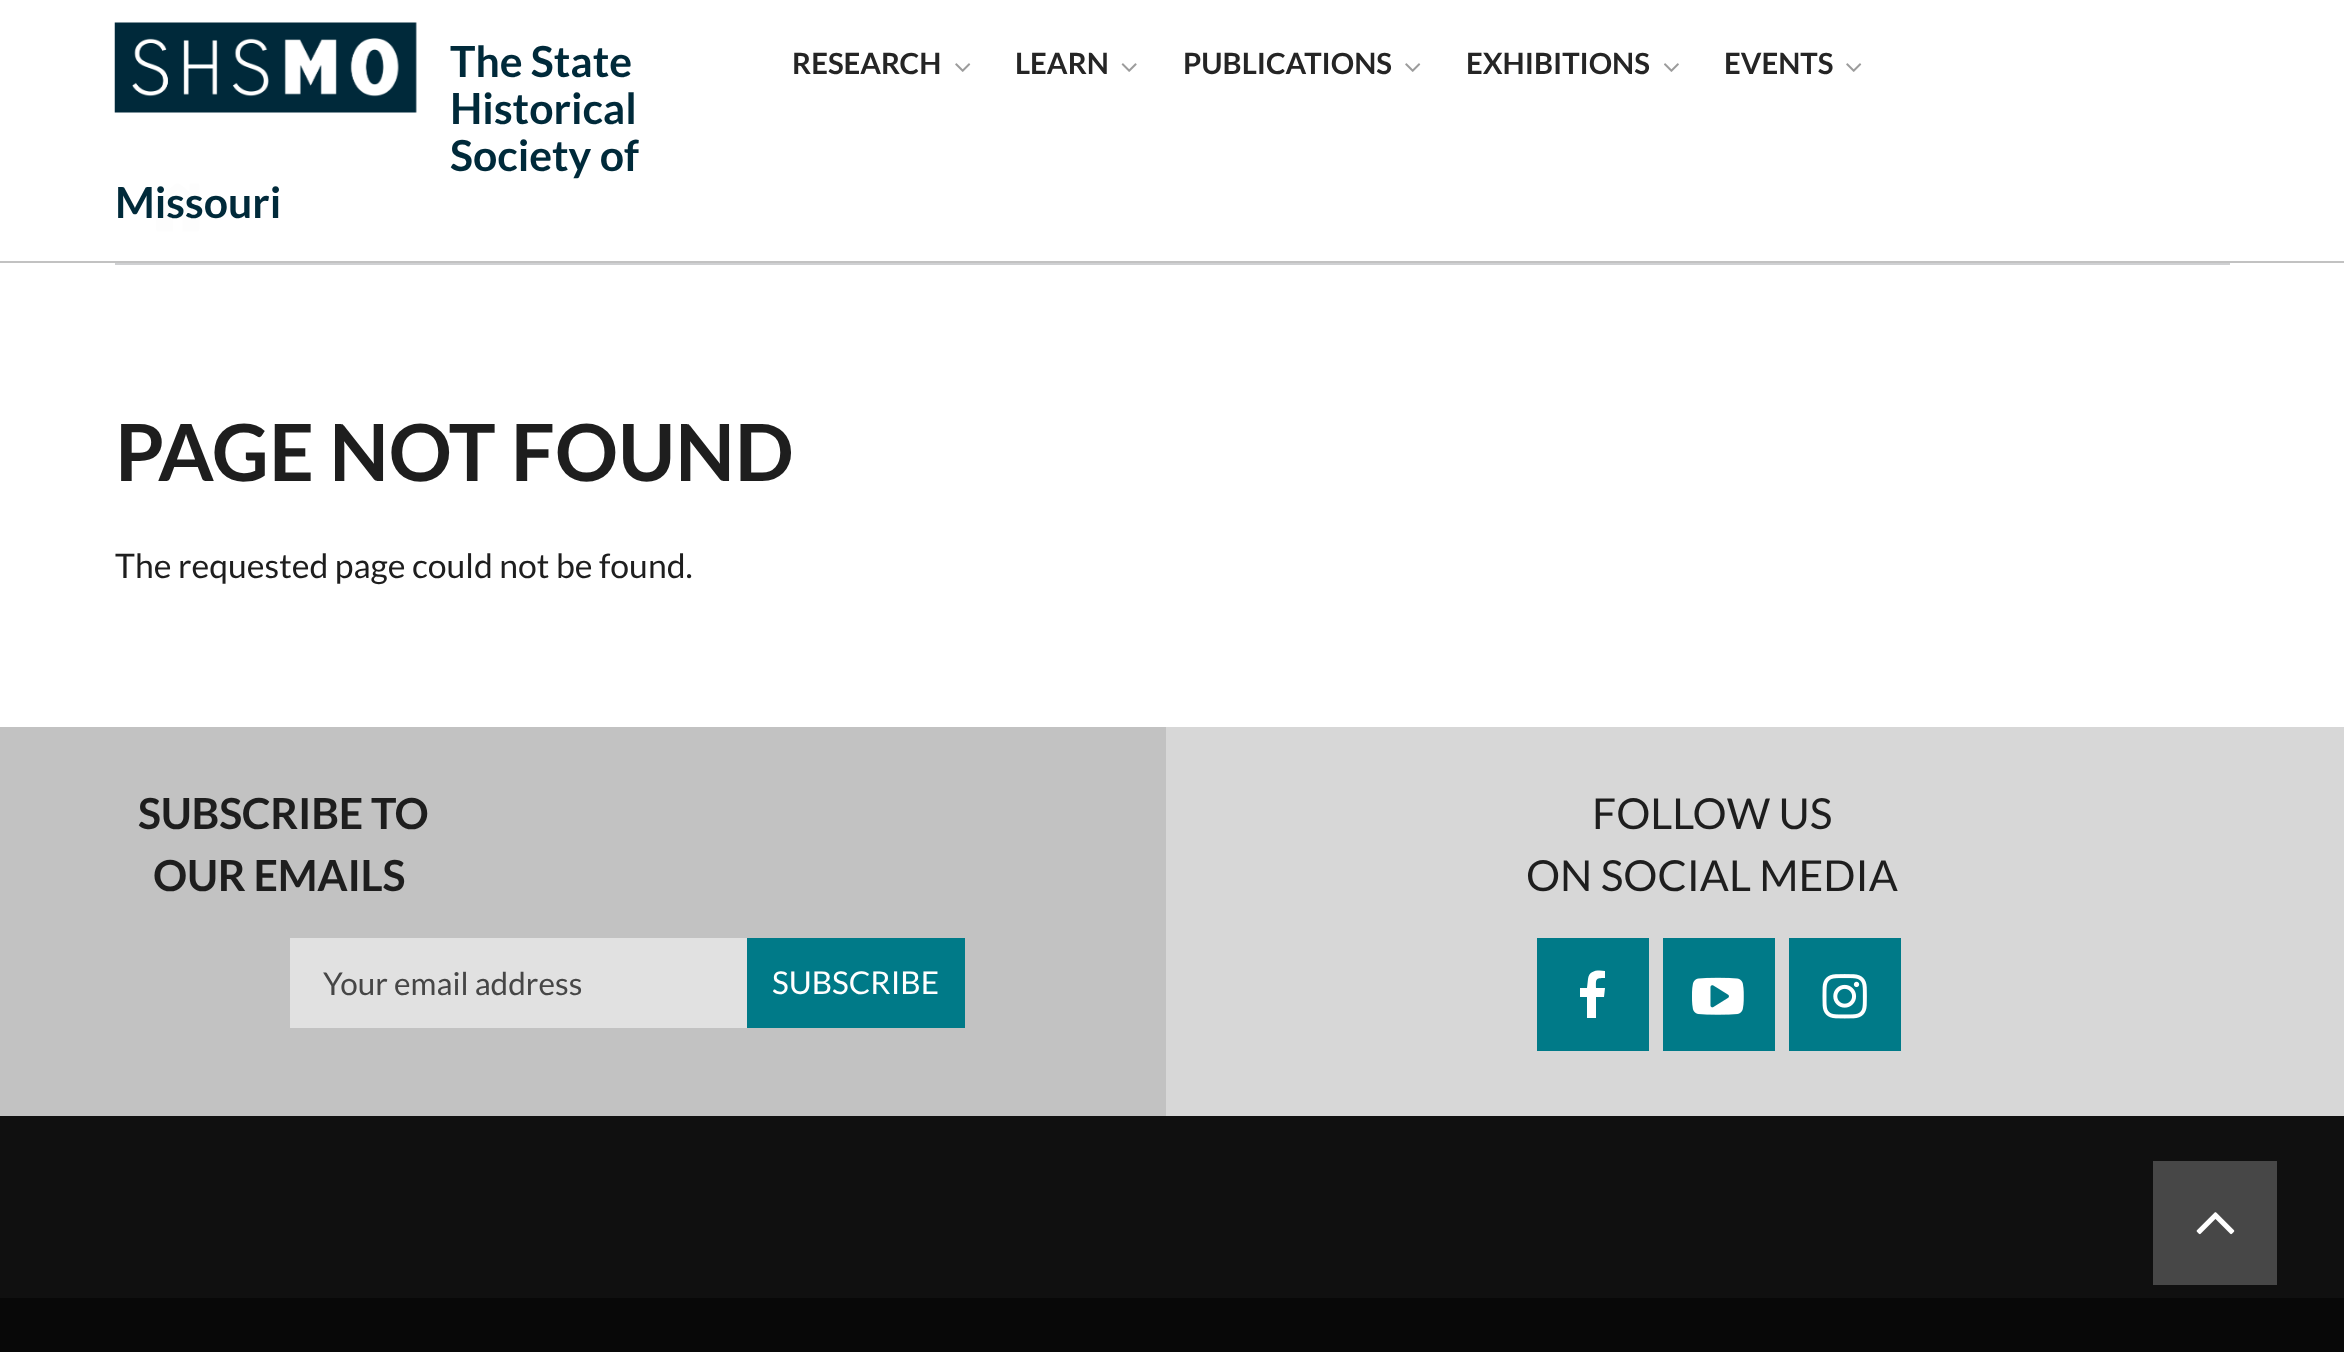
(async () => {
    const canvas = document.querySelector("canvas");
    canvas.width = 2344;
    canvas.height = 1352;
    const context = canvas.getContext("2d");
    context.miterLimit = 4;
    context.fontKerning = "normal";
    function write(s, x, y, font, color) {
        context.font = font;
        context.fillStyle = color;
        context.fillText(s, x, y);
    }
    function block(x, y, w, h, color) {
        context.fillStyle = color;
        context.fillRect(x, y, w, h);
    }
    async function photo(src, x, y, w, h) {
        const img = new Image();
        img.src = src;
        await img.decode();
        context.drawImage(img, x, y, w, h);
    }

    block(0, 0, 2344, 1352, "rgb(255, 255, 255)");
    block(0, 261, 2344, 2, "rgb(194, 194, 194)");
    await photo("media/1.png", 114, 22, 303, 91);
    write("The State", 450, 77, "bold 42.75px Lato", "rgb(0, 42, 58)");
    write("Historical", 450, 124, "bold 42.75px Lato", "rgb(0, 42, 58)");
    write("Society of", 450, 171, "bold 42.75px Lato", "rgb(0, 42, 58)");
    await photo("media/5.png", 147, 183, 61, 49);
    write("Missouri", 115, 218, "bold 42.75px Lato", "rgb(0, 42, 58)");
    write("RESEARCH", 792, 74, "bold 29.25px Lato", "rgb(37, 37, 37)");
    await photo("media/2.png", 955, 63, 16, 9);
    write("LEARN", 1015, 74, "bold 29.25px Lato", "rgb(37, 37, 37)");
    await photo("media/3.png", 1121, 63, 16, 9);
    write("PUBLICATIONS", 1183, 74, "bold 29.25px Lato", "rgb(37, 37, 37)");
    await photo("media/2.png", 1405, 63, 16, 9);
    write("EXHIBITIONS", 1466, 74, "bold 29.25px Lato", "rgb(37, 37, 37)");
    await photo("media/4.png", 1664, 63, 15, 9);
    write("EVENTS", 1724, 74, "bold 29.25px Lato", "rgb(37, 37, 37)");
    await photo("media/2.png", 1846, 63, 16, 9);
    block(115, 263, 2115, 2, "rgb(207, 208, 210)");
    write("PAGE NOT FOUND", 115, 481, "bold 78.75px Lato", "rgb(30, 30, 30)");
    write("The requested page could not be found.", 115, 578, "33.75px Lato", "rgb(30, 30, 30)");
    block(0, 727, 1166, 389, "rgb(194, 194, 194)");
    block(1166, 727, 1178, 389, "rgb(215, 215, 215)");
    context.letterSpacing = "-0.25px";
    write("SUBSCRIBE TO", 138, 829, "bold 42.75px Lato", "rgb(30, 30, 30)");
    write("OUR EMAILS", 153, 891, "bold 42.75px Lato", "rgb(30, 30, 30)");
    block(290, 938, 457, 90, "rgb(225, 225, 225)");
    context.letterSpacing = "0px";
    write("Your email address", 323, 995, "31.5px Lato", "rgb(70, 70, 70)");
    block(747, 938, 218, 90, "rgb(0, 122, 136)");
    write("SUBSCRIBE", 772, 994, "31.5px Lato", "rgb(255, 255, 255)");
    write("FOLLOW US", 1592, 829, "42.75px Lato", "rgb(30, 30, 30)");
    write("ON SOCIAL MEDIA", 1526, 891, "42.75px Lato", "rgb(30, 30, 30)");
    block(1537, 938, 112, 113, "rgb(0, 122, 136)");
    context.fillStyle = "rgb(255, 255, 255)";
    context.beginPath();
    context.moveTo(1605, 971);
    context.lineTo(1605, 978);
    context.bezierCurveTo(1595, 978, 1596, 979, 1596, 988);
    context.lineTo(1605, 988);
    context.lineTo(1604, 997);
    context.lineTo(1596, 997);
    context.lineTo(1596, 1018);
    context.lineTo(1587, 1018);
    context.lineTo(1587, 997);
    context.lineTo(1580, 997);
    context.lineTo(1580, 988);
    context.lineTo(1587, 988);
    context.lineTo(1588, 979);
    context.bezierCurveTo(1589, 970, 1598, 970, 1605, 971);
    context.closePath();
    context.fill();
    block(1663, 938, 112, 113, "rgb(0, 122, 136)");
    await photo("media/6.png", 1692, 977, 52, 38);
    block(1789, 938, 112, 113, "rgb(0, 122, 136)");
    await photo("media/7.png", 1822, 974, 45, 45);
    block(0, 1116, 2344, 182, "rgb(16, 16, 16)");
    block(2153, 1161, 124, 124, "rgb(71, 71, 71)");
    await photo("media/8.png", 2196, 1212, 39, 23);
    block(0, 1298, 2344, 54, "rgb(8, 8, 8)");
})();
